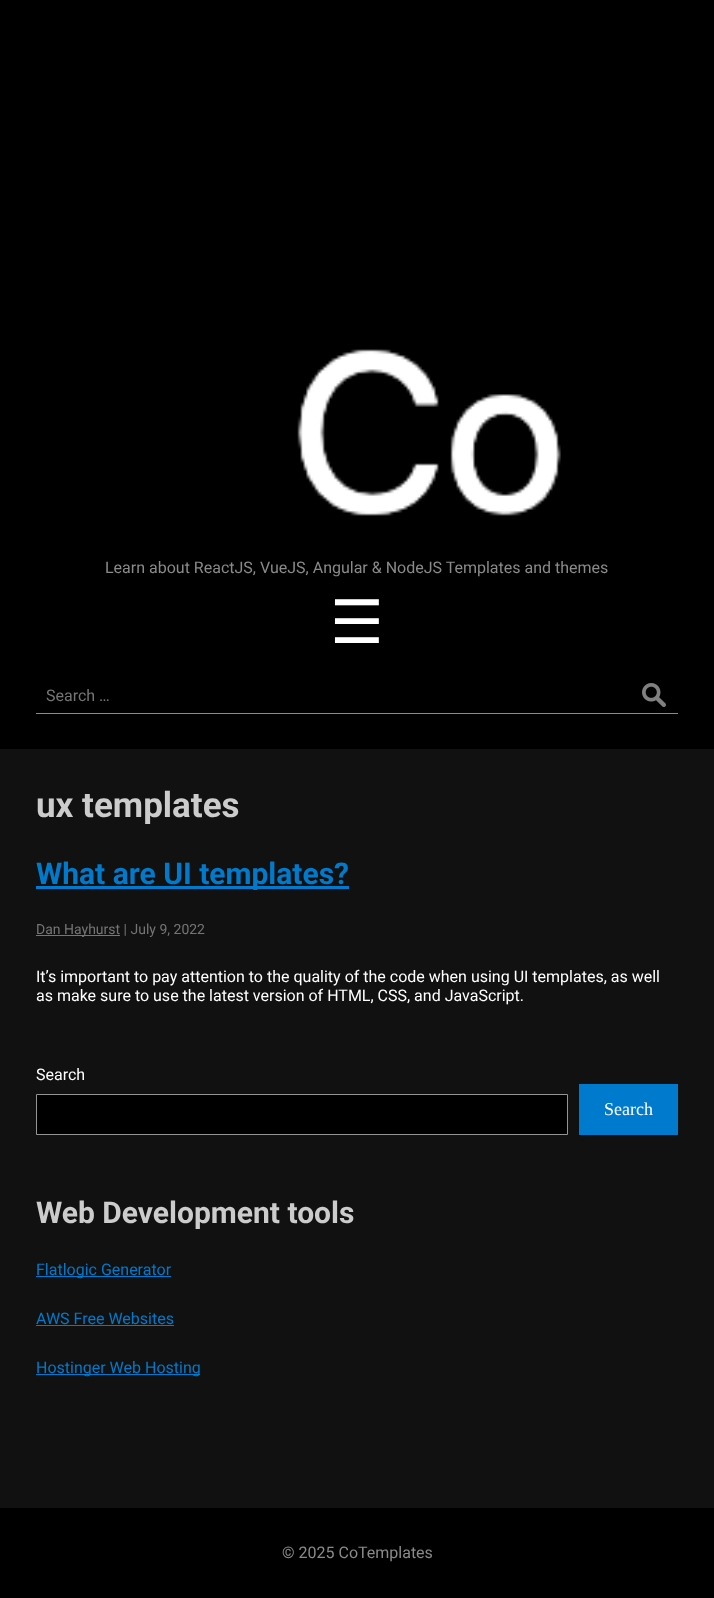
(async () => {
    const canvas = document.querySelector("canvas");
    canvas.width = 714;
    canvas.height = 1598;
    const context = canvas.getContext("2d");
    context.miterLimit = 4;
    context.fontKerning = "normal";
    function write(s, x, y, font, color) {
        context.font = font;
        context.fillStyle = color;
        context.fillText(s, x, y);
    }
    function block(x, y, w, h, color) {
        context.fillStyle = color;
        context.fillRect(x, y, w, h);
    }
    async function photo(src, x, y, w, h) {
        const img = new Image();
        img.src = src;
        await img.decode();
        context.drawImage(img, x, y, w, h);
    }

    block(0, 0, 714, 1598, "rgb(0, 0, 0)");
    await photo("media/1.png", 297, 349, 264, 167);
    write("Learn about ReactJS, VueJS, Angular & NodeJS Templates and themes", 105, 573, "16px Roboto", "rgb(138, 138, 138)");
    write("☰", 330, 643, "60px DejaVu Sans", "rgb(255, 255, 255)");
    await photo("media/2.png", 642, 683, 24, 24);
    block(36, 713, 642, 1, "rgb(138, 138, 138)");
    write("Search …", 46, 701, "16px Roboto", "rgb(117, 117, 117)");
    block(0, 749, 714, 759, "rgb(17, 17, 17)");
    write("ux templates", 36, 817, "bold 35px Roboto", "rgb(204, 204, 204)");
    block(36, 886, 313, 3, "rgb(0, 122, 204)");
    write("What are UI templates?", 36, 884, "bold 30px Roboto", "rgb(0, 122, 204)");
    block(36, 935, 84, 1, "rgb(118, 118, 118)");
    write("Dan Hayhurst | July 9, 2022", 36, 934, "14px Roboto", "rgb(117, 117, 117)");
    write("It’s important to pay attention to the quality of the code when using UI templates, as well", 36, 982, "16px Roboto", "rgb(255, 255, 255)");
    write("as make sure to use the latest version of HTML, CSS, and JavaScript.", 36, 1001, "16px Roboto", "rgb(255, 255, 255)");
    write("Search", 36, 1080, "16px Roboto", "rgb(255, 255, 255)");
    context.fillStyle = "rgb(0, 0, 0)";
    context.beginPath();
    context.rect(36.5, 1094.5, 531, 40);
    context.fill();
    context.strokeStyle = "rgb(148, 148, 148)";
    context.stroke();
    block(579, 1084, 99, 51, "rgb(0, 122, 204)");
    write("Search", 604, 1115, "18px Liberation Serif", "rgb(255, 255, 255)");
    write("Web Development tools", 36, 1223, "bold 30px Roboto", "rgb(204, 204, 204)");
    block(36, 1276, 135, 1, "rgb(0, 122, 204)");
    write("Flatlogic Generator", 36, 1275, "16px Roboto", "rgb(0, 122, 204)");
    write("AWS Free Websites", 36, 1324, "16px Roboto", "rgb(0, 122, 204)");
    block(36, 1325, 138, 1, "rgb(0, 122, 204)");
    block(36, 1374, 164, 1, "rgb(0, 122, 204)");
    write("Hostinger Web Hosting", 36, 1373, "16px Roboto", "rgb(0, 122, 204)");
    write("© 2025 CoTemplates", 282, 1558, "16px Roboto", "rgb(138, 138, 138)");
})();
